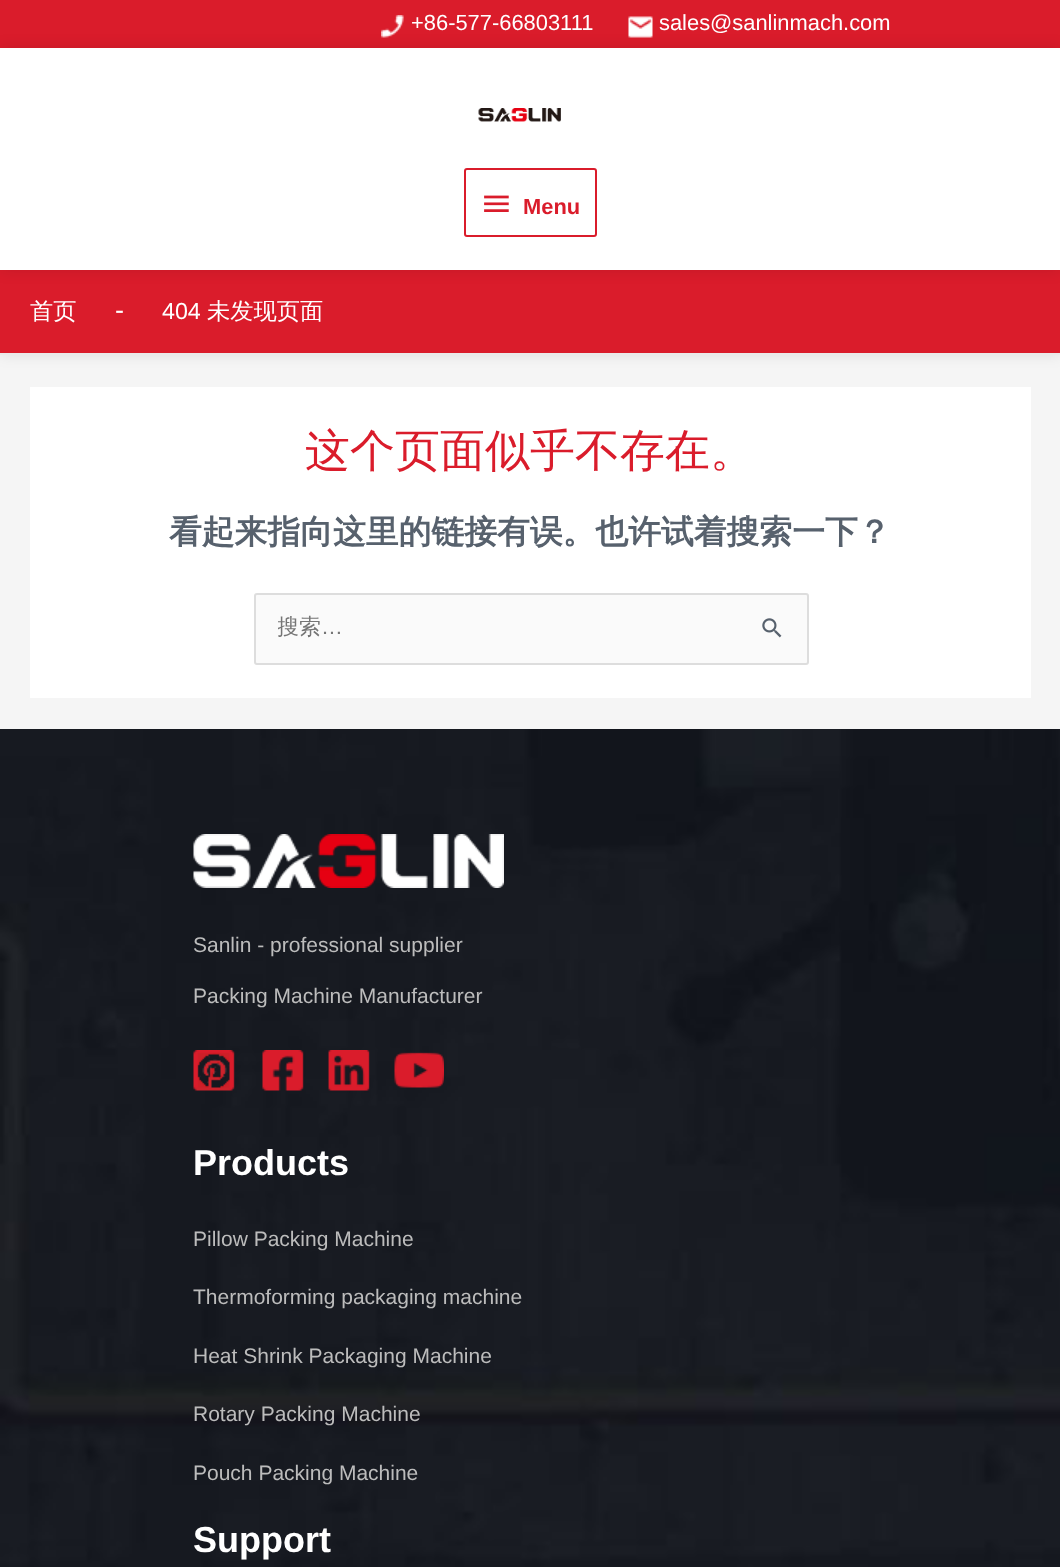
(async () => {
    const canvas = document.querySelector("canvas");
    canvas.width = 1060;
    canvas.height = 1567;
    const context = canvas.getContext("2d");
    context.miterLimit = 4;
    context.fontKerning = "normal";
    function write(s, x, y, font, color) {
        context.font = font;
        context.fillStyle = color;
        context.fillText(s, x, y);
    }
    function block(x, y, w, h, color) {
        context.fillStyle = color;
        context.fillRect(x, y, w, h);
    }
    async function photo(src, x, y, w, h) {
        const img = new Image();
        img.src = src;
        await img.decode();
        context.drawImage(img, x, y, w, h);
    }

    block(0, 0, 1060, 1567, "rgb(245, 245, 245)");
    block(0, 0, 1060, 48, "rgb(218, 28, 43)");
    await photo("media/1.png", 381, 15, 23, 23);
    write("+86-577-66803111", 411, 30, "21.9px Liberation Sans", "rgb(255, 255, 255)");
    await photo("media/2.png", 628, 16, 25, 22);
    write("sales@sanlinmach.com", 659, 30, "21.9px Liberation Sans", "rgb(255, 255, 255)");
    context.fillStyle = "rgba(0, 0, 0, 0.1)";
    context.filter = "blur(7.5px)";
    context.beginPath();
    context.rect(0, 270, 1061, 84);
    context.fill();
    context.filter = "none";
    block(0, 270, 1060, 83, "rgb(218, 28, 43)");
    context.fillStyle = "rgba(0, 0, 0, 0.1)";
    context.filter = "blur(7.5px)";
    context.beginPath();
    context.rect(0, 48, 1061, 222);
    context.fill();
    context.filter = "none";
    block(0, 48, 1060, 222, "rgb(255, 255, 255)");
    await photo("media/3.png", 478, 108, 83, 14);
    context.beginPath();
    context.roundRect(465, 169, 131, 67, 2);
    context.strokeStyle = "rgb(218, 28, 43)";
    context.lineWidth = 2;
    context.stroke();
    await photo("media/4.png", 484, 195, 25, 17);
    write("Menu", 523, 214, "bold 21.9px Liberation Sans", "rgb(218, 28, 43)");
    block(0, 353, 1060, 2, "rgb(234, 234, 234)");
    write("首页", 30, 319, "500 23.25px WenQuanYi Zen Hei", "rgb(255, 255, 255)");
    write("-", 115, 319, "27px Liberation Sans", "rgb(255, 255, 255)");
    write("404", 162, 319, "23.25px Liberation Sans", "rgb(255, 255, 255)");
    write("未发现页面", 207, 319, "500 23.25px WenQuanYi Zen Hei", "rgb(255, 255, 255)");
    block(30, 387, 1001, 311, "rgb(255, 255, 255)");
    write("这个页面似乎不存在。", 305, 466, "500 45px WenQuanYi Zen Hei", "rgb(218, 28, 43)");
    write("看起来指向这里的链接有误。也许试着搜索一下？", 169, 543, "bold 32.8px WenQuanYi Zen Hei", "rgb(87, 97, 109)");
    context.fillStyle = "rgb(250, 250, 250)";
    context.beginPath();
    context.roundRect(255, 594, 553, 70, 2);
    context.fill();
    context.strokeStyle = "rgb(221, 221, 221)";
    context.stroke();
    context.save();
    context.beginPath();
    context.rect(278, 614, 456, 28);
    context.clip();
    write("搜索", 277, 634, "500 21.9px WenQuanYi Zen Hei", "rgb(117, 117, 117)");
    context.restore();
    write("…", 321, 634, "21.9px Liberation Sans", "rgb(117, 117, 117)");
    await photo("media/5.png", 762, 618, 20, 20);
    await photo("media/6.png", 0, 729, 1060, 838);
    await photo("media/7.png", 193, 834, 311, 54);
    write("Sanlin - professional supplier", 193, 952, "21px Liberation Sans", "rgb(188, 188, 188)");
    write("Packing Machine Manufacturer", 193, 1003, "21px Liberation Sans", "rgb(188, 188, 188)");
    await photo("media/8.png", 193, 1050, 42, 41);
    await photo("media/9.png", 262, 1050, 42, 41);
    await photo("media/10.png", 328, 1050, 42, 41);
    await photo("media/11.png", 394, 1052, 50, 36);
    write("Products", 193, 1175, "bold 36px Liberation Sans", "rgb(255, 255, 255)");
    write("Pillow Packing Machine", 193, 1246, "21px Liberation Sans", "rgb(188, 188, 188)");
    write("Thermoforming packaging machine", 193, 1304, "21px Liberation Sans", "rgb(188, 188, 188)");
    write("Heat Shrink Packaging Machine", 193, 1363, "21px Liberation Sans", "rgb(188, 188, 188)");
    write("Rotary Packing Machine", 193, 1421, "21px Liberation Sans", "rgb(188, 188, 188)");
    write("Pouch Packing Machine", 193, 1480, "21px Liberation Sans", "rgb(188, 188, 188)");
    write("Support", 193, 1552, "bold 36px Liberation Sans", "rgb(255, 255, 255)");
})();
